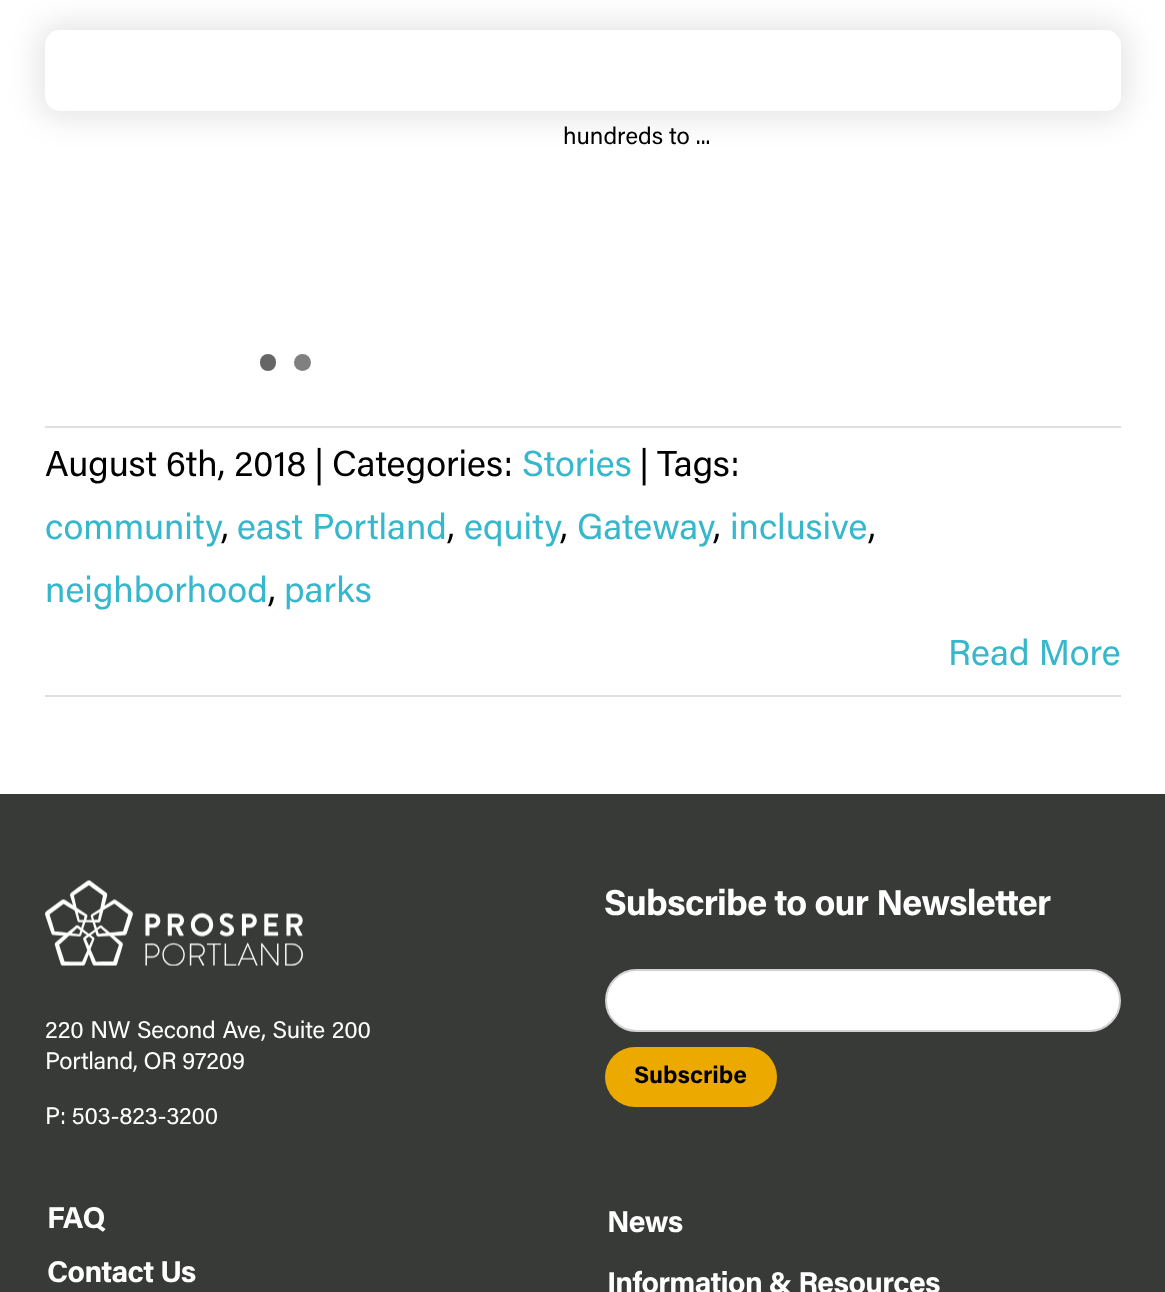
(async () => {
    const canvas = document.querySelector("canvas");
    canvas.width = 1165;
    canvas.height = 1292;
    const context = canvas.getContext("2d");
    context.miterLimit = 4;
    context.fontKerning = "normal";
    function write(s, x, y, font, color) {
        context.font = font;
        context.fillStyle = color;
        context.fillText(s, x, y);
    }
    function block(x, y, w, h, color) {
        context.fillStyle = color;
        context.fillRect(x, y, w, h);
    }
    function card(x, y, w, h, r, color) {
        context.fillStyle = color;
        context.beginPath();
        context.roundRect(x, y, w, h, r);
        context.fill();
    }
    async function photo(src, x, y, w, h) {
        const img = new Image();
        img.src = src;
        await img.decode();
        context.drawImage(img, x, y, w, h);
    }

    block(0, 0, 1165, 1292, "rgb(255, 255, 255)");
    context.fillStyle = "rgba(0, 0, 0, 0.1)";
    context.filter = "blur(15px)";
    context.beginPath();
    context.roundRect(38, 23, 1090, 96, 23);
    context.fill();
    context.filter = "none";
    card(45, 30, 1076, 81, 15, "rgb(255, 255, 255)");
    write("hundreds to ...", 563, 144, "24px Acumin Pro", "rgb(0, 0, 0)");
    card(260, 354, 16, 17, 8, "rgb(102, 102, 102)");
    context.fillStyle = "rgb(128, 128, 128)";
    context.beginPath();
    context.arc(302.5, 362.5, 8.5, 0, Math.PI * 2);
    context.fill();
    block(45, 426, 1076, 2, "rgb(224, 222, 222)");
    block(45, 695, 1076, 2, "rgb(224, 222, 222)");
    write("August 6th, 2018", 45, 476, "36px Acumin Pro", "rgb(0, 0, 0)");
    write("|", 314, 476, "36px Acumin Pro", "rgb(0, 0, 0)");
    write("Categories:", 332, 476, "36px Acumin Pro", "rgb(0, 0, 0)");
    write("Stories", 522, 476, "36px Acumin Pro", "rgb(55, 183, 204)");
    write("|", 639, 476, "36px Acumin Pro", "rgb(0, 0, 0)");
    write("Tags:", 657, 476, "36px Acumin Pro", "rgb(0, 0, 0)");
    write("community", 45, 539, "36px Acumin Pro", "rgb(55, 183, 204)");
    write(",", 221, 539, "36px Acumin Pro", "rgb(0, 0, 0)");
    write("east Portland", 237, 539, "36px Acumin Pro", "rgb(55, 183, 204)");
    write(",", 447, 539, "36px Acumin Pro", "rgb(0, 0, 0)");
    write("equity", 464, 539, "36px Acumin Pro", "rgb(55, 183, 204)");
    write(",", 560, 539, "36px Acumin Pro", "rgb(0, 0, 0)");
    write("Gateway", 577, 539, "36px Acumin Pro", "rgb(55, 183, 204)");
    write(",", 713, 539, "36px Acumin Pro", "rgb(0, 0, 0)");
    write("inclusive", 730, 539, "36px Acumin Pro", "rgb(55, 183, 204)");
    write(",", 868, 539, "36px Acumin Pro", "rgb(0, 0, 0)");
    write("neighborhood", 45, 602, "36px Acumin Pro", "rgb(55, 183, 204)");
    write(",", 268, 602, "36px Acumin Pro", "rgb(0, 0, 0)");
    write("parks", 284, 602, "36px Acumin Pro", "rgb(55, 183, 204)");
    write("Read More", 948, 665, "36px Acumin Pro", "rgb(55, 183, 204)");
    block(0, 794, 1165, 498, "rgb(55, 58, 54)");
    await photo("media/1.png", 45, 880, 258, 86);
    context.letterSpacing = "-0.25px";
    context.wordSpacing = "1px";
    write("220 NW Second Ave, Suite 200", 45, 1038, "24px Acumin Pro", "rgb(255, 255, 255)");
    context.wordSpacing = "0px";
    write("Portland, OR 97209", 45, 1069, "24px Acumin Pro", "rgb(255, 255, 255)");
    write("P: 503-823-3200", 45, 1124, "24px Acumin Pro", "rgb(255, 255, 255)");
    context.letterSpacing = "-0.75px";
    write("Subscribe to our Newsletter", 604, 915, "bold 36px Acumin Pro", "rgb(255, 255, 255)");
    context.beginPath();
    context.roundRect(606, 970, 514, 61, 30.5);
    context.fill();
    context.strokeStyle = "rgb(210, 210, 210)";
    context.lineWidth = 2;
    context.stroke();
    card(605, 1047, 172, 60, 30, "rgb(236, 170, 0)");
    context.letterSpacing = "0px";
    write("Subscribe", 634, 1083, "bold 24px Acumin Pro", "rgb(0, 0, 0)");
    context.letterSpacing = "-0.6px";
    write("FAQ", 47, 1228, "bold 30px Acumin Pro", "rgb(255, 255, 255)");
    write("Contact Us", 47, 1282, "bold 30px Acumin Pro", "rgb(255, 255, 255)");
    write("News", 607, 1232, "bold 30px Acumin Pro", "rgb(255, 255, 255)");
    write("Information & Resources", 607, 1293, "bold 30px Acumin Pro", "rgb(255, 255, 255)");
})();
